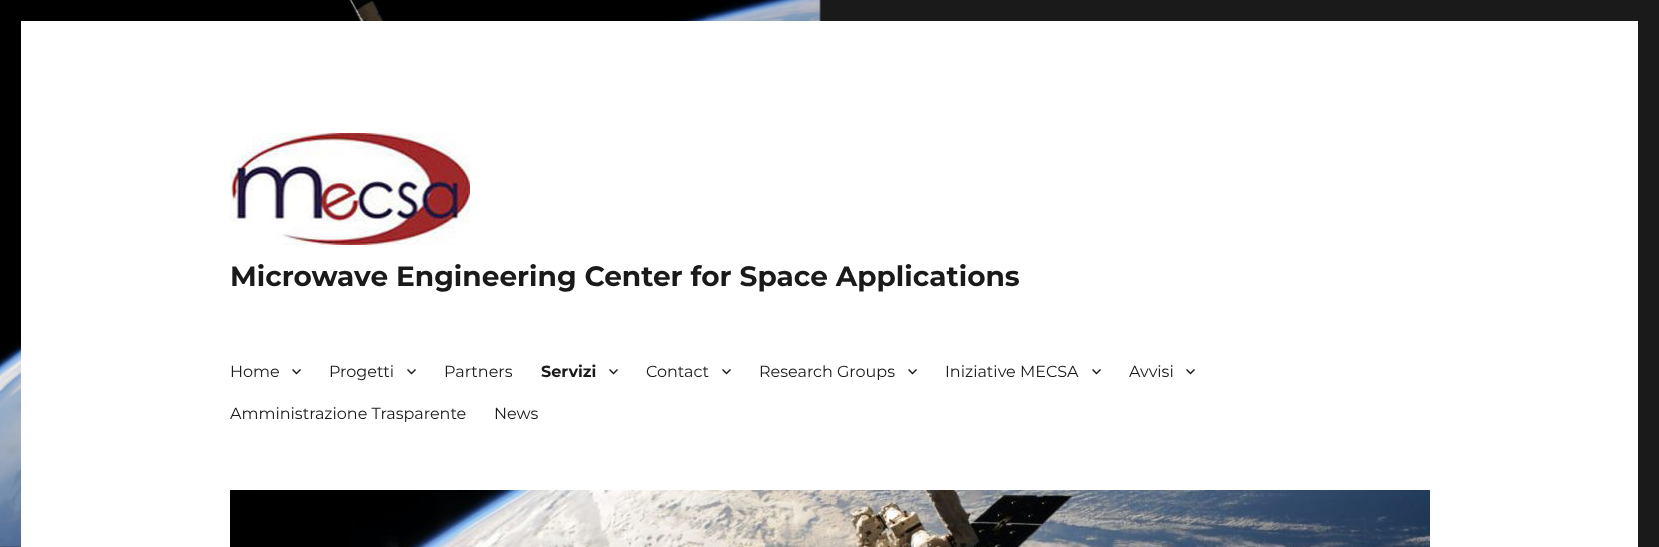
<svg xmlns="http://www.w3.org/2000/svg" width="1659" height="547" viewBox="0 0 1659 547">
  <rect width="100%" height="100%" fill="rgb(26,26,26)"/>
  <image x="0" y="0" width="821" height="547" href="pic1.png"/>
  <rect x="21" y="21" width="1617" height="526" fill="rgb(255,255,255)"/>
  <image x="230" y="133" width="240" height="112" href="pic2.png"/>
  <text x="230" y="286" font-family="Montserrat" font-size="28" font-weight="bold" fill="rgb(26,26,26)">Microwave Engineering Center for Space Applications</text>
  <text x="230" y="377" font-family="Montserrat" font-size="16" fill="rgb(26,26,26)">Home</text>
  <image x="292" y="369" width="9" height="6" href="pic3.png"/>
  <text x="329" y="377" font-family="Montserrat" font-size="16" fill="rgb(26,26,26)">Progetti</text>
  <image x="407" y="369" width="9" height="6" href="pic3.png"/>
  <text x="444" y="377" font-family="Montserrat" font-size="16" fill="rgb(26,26,26)">Partners</text>
  <text x="541" y="377" font-family="Montserrat" font-size="16" font-weight="bold" fill="rgb(26,26,26)">Servizi</text>
  <image x="609" y="369" width="9" height="6" href="pic3.png"/>
  <text x="646" y="377" font-family="Montserrat" font-size="16" fill="rgb(26,26,26)">Contact</text>
  <image x="722" y="369" width="9" height="6" href="pic3.png"/>
  <text x="759" y="377" font-family="Montserrat" font-size="16" fill="rgb(26,26,26)">Research Groups</text>
  <image x="908" y="369" width="9" height="6" href="pic3.png"/>
  <text x="945" y="377" font-family="Montserrat" font-size="16" fill="rgb(26,26,26)">Iniziative MECSA</text>
  <image x="1092" y="369" width="9" height="6" href="pic3.png"/>
  <text x="1129" y="377" font-family="Montserrat" font-size="16" fill="rgb(26,26,26)">Avvisi</text>
  <image x="1186" y="369" width="9" height="6" href="pic3.png"/>
  <g font-family="Montserrat" font-size="16" fill="rgb(26,26,26)">
    <text x="230" y="419">Amministrazione Trasparente</text>
    <text x="494" y="419">News</text>
  </g>
  <image x="230" y="490" width="1200" height="57" href="pic4.png"/>
</svg>
